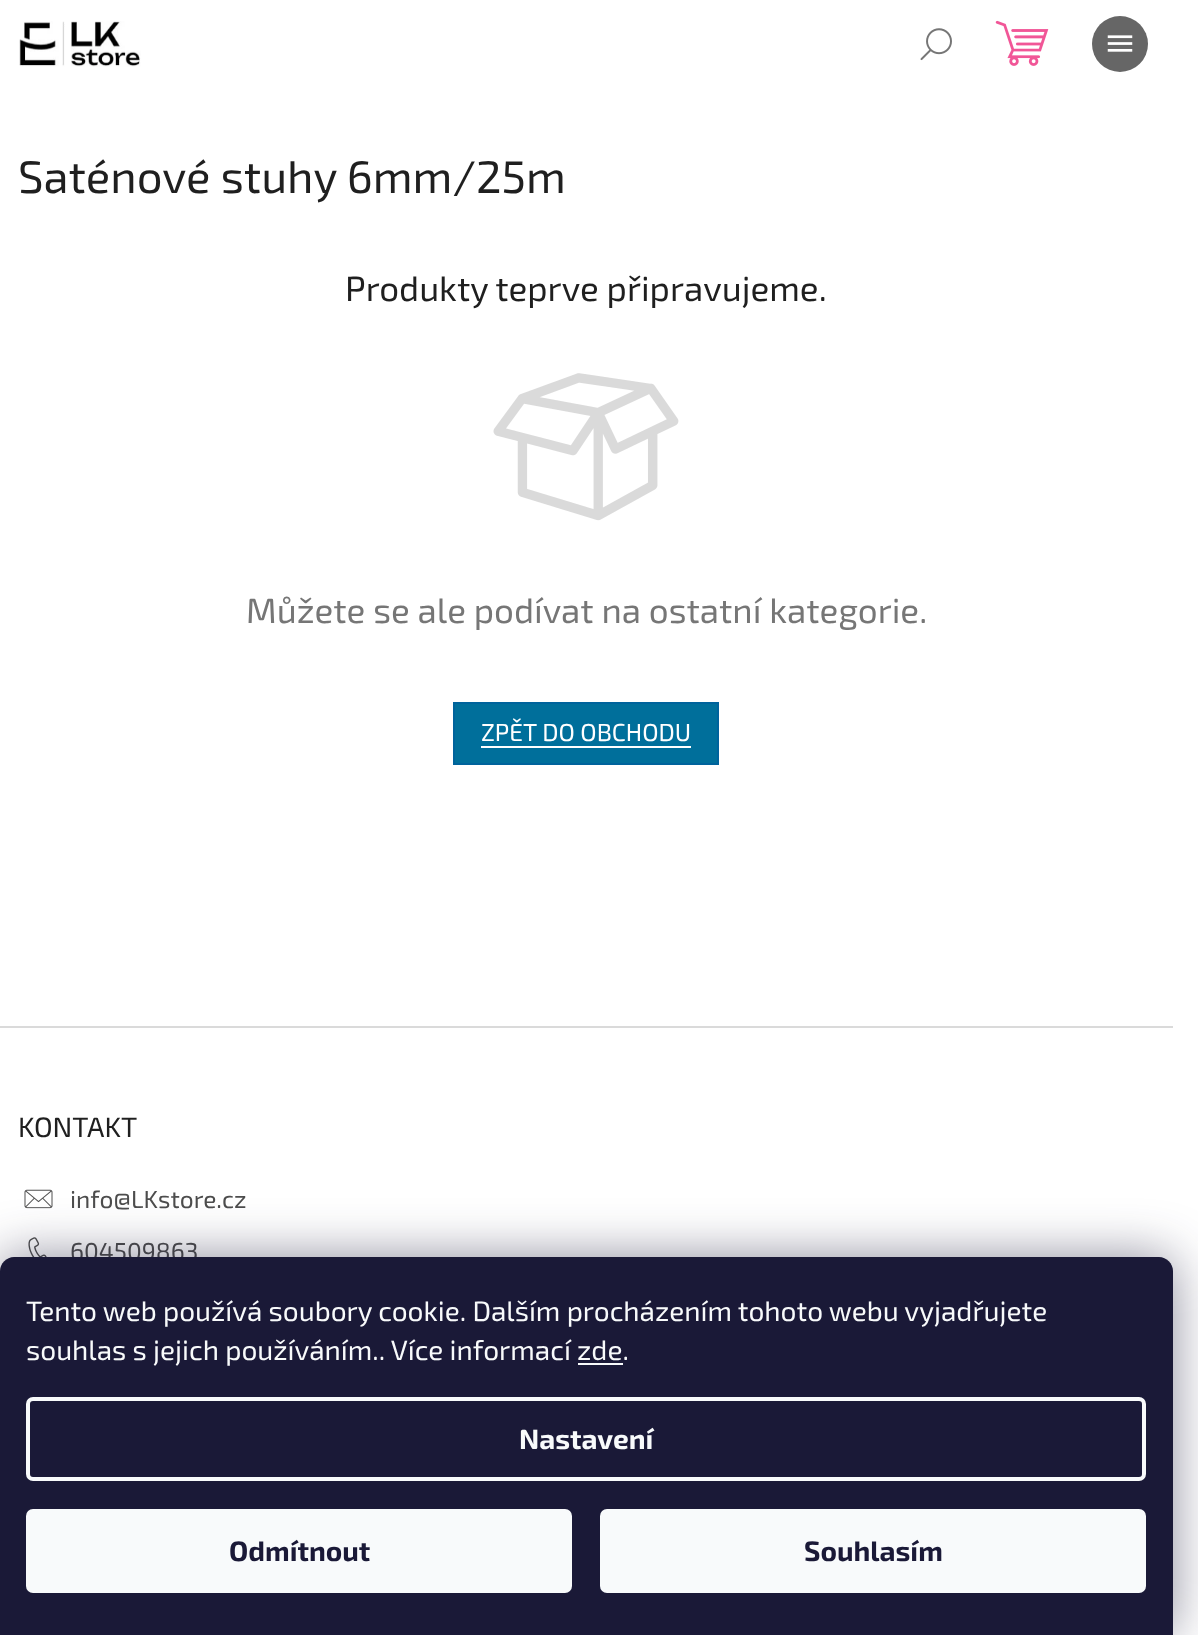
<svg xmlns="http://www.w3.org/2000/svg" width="1198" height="1635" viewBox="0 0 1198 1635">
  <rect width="100%" height="100%" fill="rgb(255,255,255)"/>
  <image x="920" y="28" width="32" height="33" href="pic1.png"/>
  <circle cx="1120" cy="44" r="28" fill="rgb(102,102,102)"/>
  <image x="1107" y="35" width="26" height="17" href="pic2.png"/>
  <image x="19" y="21" width="122" height="46" href="pic3.png"/>
  <image x="995" y="20" width="54" height="46" href="pic4.png"/>
  <text x="18" y="193" font-family="'Exo 2'" font-size="45.5" fill="rgb(31,31,31)">Saténové stuhy 6mm/25m</text>
  <text x="345" y="301" font-family="'Exo 2'" font-size="35" fill="rgb(31,31,31)">Produkty teprve připravujeme.</text>
  <image x="493" y="373" width="186" height="148" href="pic5.png"/>
  <text x="246" y="623" font-family="'Exo 2'" font-size="35" fill="rgb(118,118,118)">Můžete se ale podívat na ostatní kategorie.</text>
  <rect x="454" y="703" width="264" height="61" fill="rgb(0,111,155)" stroke="rgb(0,99,156)" stroke-width="2"/>
  <text x="481" y="741" font-family="'Exo 2'" font-size="24.5" fill="rgb(255,255,255)">ZPĚT DO OBCHODU</text>
  <rect x="481" y="746" width="210" height="2" fill="rgb(255,255,255)"/>
  <rect x="0" y="1026" width="1173" height="2" fill="rgb(218,218,218)"/>
  <text x="18" y="1137" font-family="'Exo 2'" font-size="28" fill="rgb(31,31,31)">KONTAKT</text>
  <image x="24" y="1189" width="29" height="20" href="pic6.png"/>
  <text x="70" y="1208" font-family="'Exo 2'" font-size="24.5" fill="rgb(77,77,77)">info@LKstore.cz</text>
  <image x="28" y="1237" width="19" height="20" href="pic7.png"/>
  <text x="70" y="1260" font-family="'Exo 2'" font-size="24.5" fill="rgb(77,77,77)">604509863</text>
  <rect x="0" y="1257" width="1173" height="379" rx="14" fill="rgba(27,25,57,0.5)" filter="blur(26px)"/>
  <path d="M14 1257H1159C1166.5 1257 1173 1263.5 1173 1271V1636H0V1271C0 1263.5 6.5 1257 14 1257Z" fill="rgb(26,25,55)"/>
  <g font-family="'Exo 2'" font-size="28" fill="rgb(248,250,251)">
    <text>
      <tspan x="26" y="1321">Tento web používá soubory cookie. Dalším procházením tohoto webu vyjadřujete</tspan>
      <tspan x="26" y="1360">souhlas s jejich používáním.. Více informací zde.</tspan>
    </text>
  </g>
  <rect x="578" y="1363" width="45" height="2" fill="rgb(248,250,251)"/>
  <rect x="28" y="1399" width="1116" height="80" rx="5" fill="none" stroke="rgb(248,250,251)" stroke-width="4"/>
  <text x="519" y="1449" font-family="'Exo 2'" font-size="28" font-weight="bold" fill="rgb(248,250,251)">Nastavení</text>
  <rect x="26" y="1509" width="546" height="84" rx="7" fill="rgb(248,250,251)"/>
  <text x="229" y="1561" font-family="'Exo 2'" font-size="28" font-weight="bold" fill="rgb(26,25,55)">Odmítnout</text>
  <rect x="600" y="1509" width="546" height="84" rx="7" fill="rgb(248,250,251)"/>
  <text x="804" y="1561" font-family="'Exo 2'" font-size="28" font-weight="bold" fill="rgb(26,25,55)">Souhlasím</text>
</svg>
